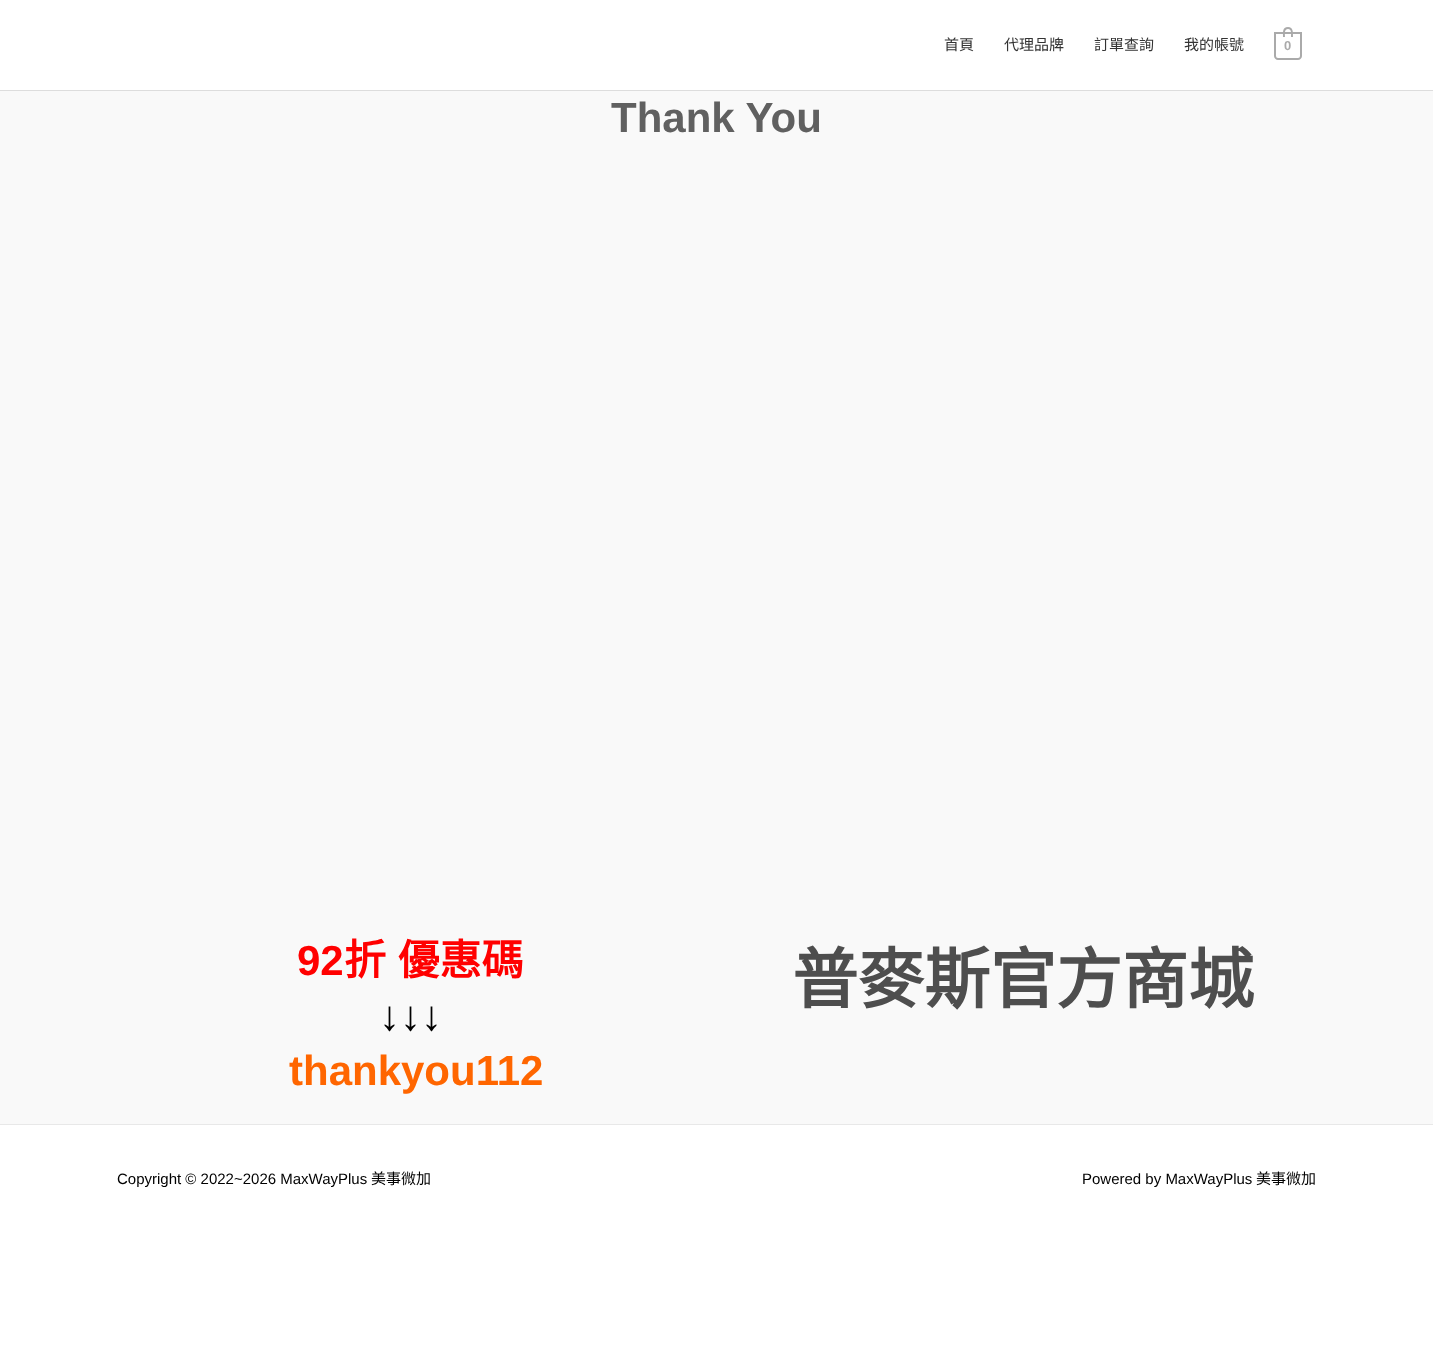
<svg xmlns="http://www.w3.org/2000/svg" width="1433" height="1355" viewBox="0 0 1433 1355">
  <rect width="100%" height="100%" fill="rgb(255,255,255)"/>
  <rect x="0" y="91" width="1433" height="1033" fill="rgb(249,249,249)"/>
  <rect x="0" y="90" width="1433" height="1" fill="rgb(221,221,221)"/>
  <g font-family="Noto Sans CJK TC" font-size="15" fill="rgb(51,51,51)">
    <text x="944" y="50">首頁</text>
    <text x="1004" y="50">代理品牌</text>
    <text x="1094" y="50">訂單查詢</text>
    <text x="1184" y="50">我的帳號</text>
  </g>
  <path d="M1275 33H1301V56C1301 57.5 1299.5 59 1298 59H1278C1276.5 59 1275 57.5 1275 56Z" fill="none" stroke="rgb(170,170,170)" stroke-width="2"/>
  <path d="M1288 27C1293.5 27 1293 33 1293 37H1283C1283 33 1282 27 1288 27ZM1288 29C1292 29 1291 34.5 1291 37H1285C1285 34.5 1284 29 1288 29Z" fill="rgb(170,170,170)" fill-rule="evenodd"/>
  <text x="1284" y="50" font-family="Liberation Sans" font-size="13" font-weight="bold" fill="rgb(170,170,170)">0</text>
  <text x="611" y="132" font-family="Liberation Sans" font-size="42" font-weight="bold" fill="rgb(96,96,96)">Thank You</text>
  <text x="297" y="975" font-family="Liberation Sans" font-size="42" font-weight="bold" fill="rgb(255,0,0)">92</text>
  <text x="344" y="975" word-spacing="2" font-family="Noto Sans CJK TC" font-size="42" font-weight="bold" fill="rgb(255,0,0)">折 優惠碼</text>
  <text x="379" y="1030" font-family="Liberation Sans" font-size="42" font-weight="bold" fill="rgb(0,0,0)">↓↓↓</text>
  <text x="289" y="1085" font-family="Liberation Sans" font-size="42" font-weight="bold" fill="rgb(255,102,0)">thankyou112</text>
  <text x="792" y="1003" font-family="Noto Sans CJK TC" font-size="66" font-weight="bold" fill="rgb(78,78,78)">普麥斯官方商城</text>
  <rect x="0" y="1124" width="1433" height="1" fill="rgb(232,232,232)"/>
  <text x="117" y="1184" font-family="Liberation Sans" font-size="15" fill="rgb(0,0,0)">Copyright © 2022~2026 MaxWayPlus</text>
  <text x="371" y="1184" font-family="Noto Sans CJK TC" font-size="15" fill="rgb(0,0,0)">美事微加</text>
  <text x="1082" y="1184" font-family="Liberation Sans" font-size="15" fill="rgb(0,0,0)">Powered by MaxWayPlus</text>
  <text x="1256" y="1184" font-family="Noto Sans CJK TC" font-size="15" fill="rgb(0,0,0)">美事微加</text>
</svg>
